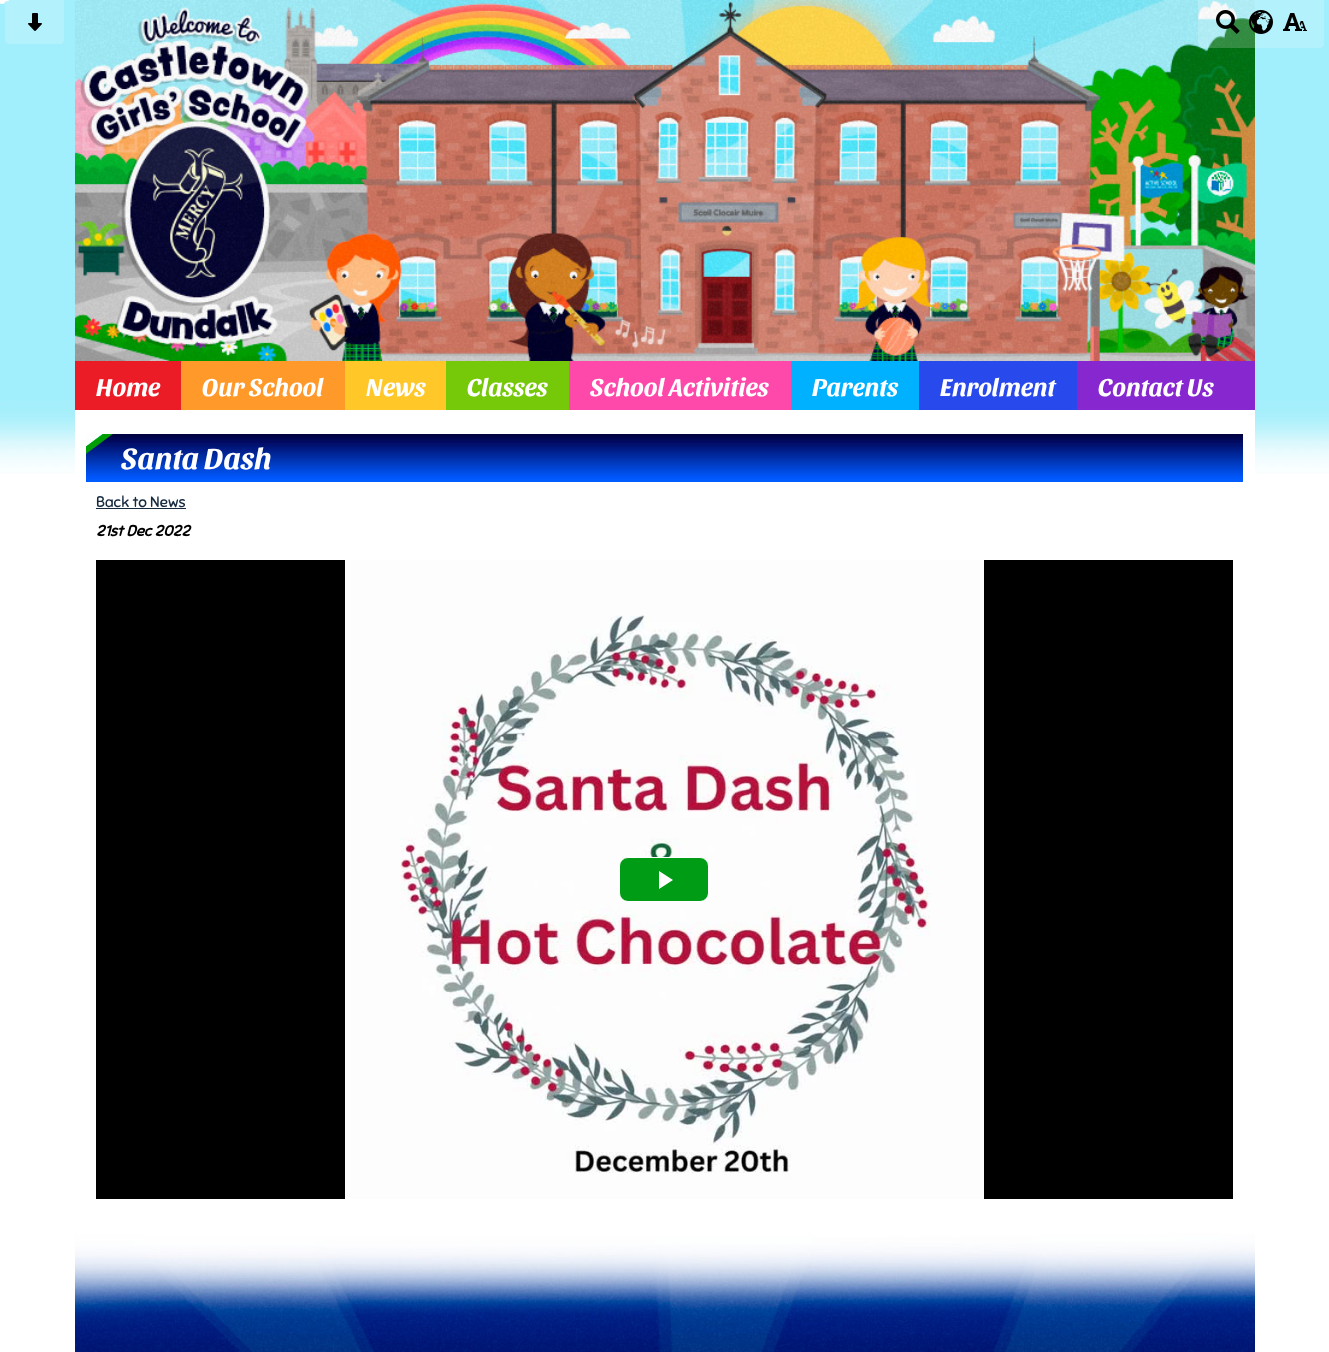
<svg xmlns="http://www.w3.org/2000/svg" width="1329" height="1352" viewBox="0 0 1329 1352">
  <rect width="100%" height="100%" fill="rgb(255,255,255)"/>
  <image x="0" y="0" width="1329" height="474" href="pic1.png"/>
  <image x="0" y="0" width="9" height="4" href="pic2.png"/>
  <path d="M5 0H64V39C64 42 62 44 59 44H10C7 44 5 42 5 39Z" fill="rgba(255,255,255,0.2)"/>
  <image x="28" y="13" width="14" height="18" href="pic3.png"/>
  <image x="75" y="0" width="1180" height="361" href="pic7.png"/>
  <path d="M1198 0H1324V43C1324 46 1322 48 1319 48H1203C1200 48 1198 46 1198 43Z" fill="rgba(255,255,255,0.2)"/>
  <image x="1216" y="10" width="24" height="24" href="pic4.png"/>
  <image x="1249" y="10" width="24" height="24" href="pic5.png"/>
  <image x="1283" y="13" width="24" height="18" href="pic6.png"/>
  <rect x="1077" y="361" width="178" height="49" fill="rgb(135,39,207)"/>
  <rect x="75" y="361" width="106" height="49" fill="rgb(235,28,38)"/>
  <text x="96" y="396" font-family="Sansita" font-size="25.5" font-weight="bold" font-style="italic" fill="rgb(255,255,255)">Home</text>
  <rect x="181" y="361" width="164" height="49" fill="rgb(255,153,42)"/>
  <text x="202" y="396" font-family="Sansita" font-size="25.5" font-weight="bold" font-style="italic" fill="rgb(255,255,255)">Our School</text>
  <rect x="345" y="361" width="101" height="49" fill="rgb(255,199,40)"/>
  <text x="366" y="396" font-family="Sansita" font-size="25.5" font-weight="bold" font-style="italic" fill="rgb(255,255,255)">News</text>
  <rect x="446" y="361" width="123" height="49" fill="rgb(118,201,9)"/>
  <text x="467" y="396" font-family="Sansita" font-size="25.5" font-weight="bold" font-style="italic" fill="rgb(255,255,255)">Classes</text>
  <rect x="569" y="361" width="222" height="49" fill="rgb(254,73,170)"/>
  <text x="590" y="396" font-family="Sansita" font-size="25.5" font-weight="bold" font-style="italic" fill="rgb(255,255,255)">School Activities</text>
  <rect x="791" y="361" width="128" height="49" fill="rgb(0,177,255)"/>
  <text x="812" y="396" font-family="Sansita" font-size="25.5" font-weight="bold" font-style="italic" fill="rgb(255,255,255)">Parents</text>
  <rect x="919" y="361" width="158" height="49" fill="rgb(40,73,236)"/>
  <g font-family="Sansita" font-size="25.5" font-weight="bold" font-style="italic" fill="rgb(255,255,255)">
    <text x="940" y="396">Enrolment</text>
    <text x="1098" y="396">Contact Us</text>
  </g>
  <rect x="75" y="410" width="1180" height="64" fill="rgb(255,255,255)"/>
  <rect x="86" y="479" width="1157" height="3" fill="rgb(0,92,255)"/>
  <image x="86" y="434" width="1157" height="45" href="pic8.png"/>
  <text x="121" y="469" font-family="Sansita" font-size="30.5" font-weight="bold" font-style="italic" fill="rgb(255,255,255)">Santa Dash</text>
  <text x="96" y="507" font-family="Sniglet" font-size="15.25" fill="rgb(21,41,65)">Back to News</text>
  <rect x="96" y="508" width="90" height="1" fill="rgb(21,41,65)"/>
  <text x="96" y="536" font-family="Sniglet" font-size="15.25" font-weight="bold" font-style="italic" fill="rgb(0,0,0)">21st Dec 2022</text>
  <rect x="96" y="560" width="1137" height="639" fill="rgb(0,0,0)"/>
  <image x="345" y="560" width="639" height="639" href="pic9.png"/>
  <rect x="619.5" y="857.5" width="89" height="44" rx="8.5" fill="rgb(0,156,21)" stroke="rgb(255,255,255)"/>
  <path d="M659 871V889L673 880Z" fill="rgb(255,255,255)"/>
  <image x="75" y="1233" width="1180" height="119" href="pic10.png"/>
</svg>
